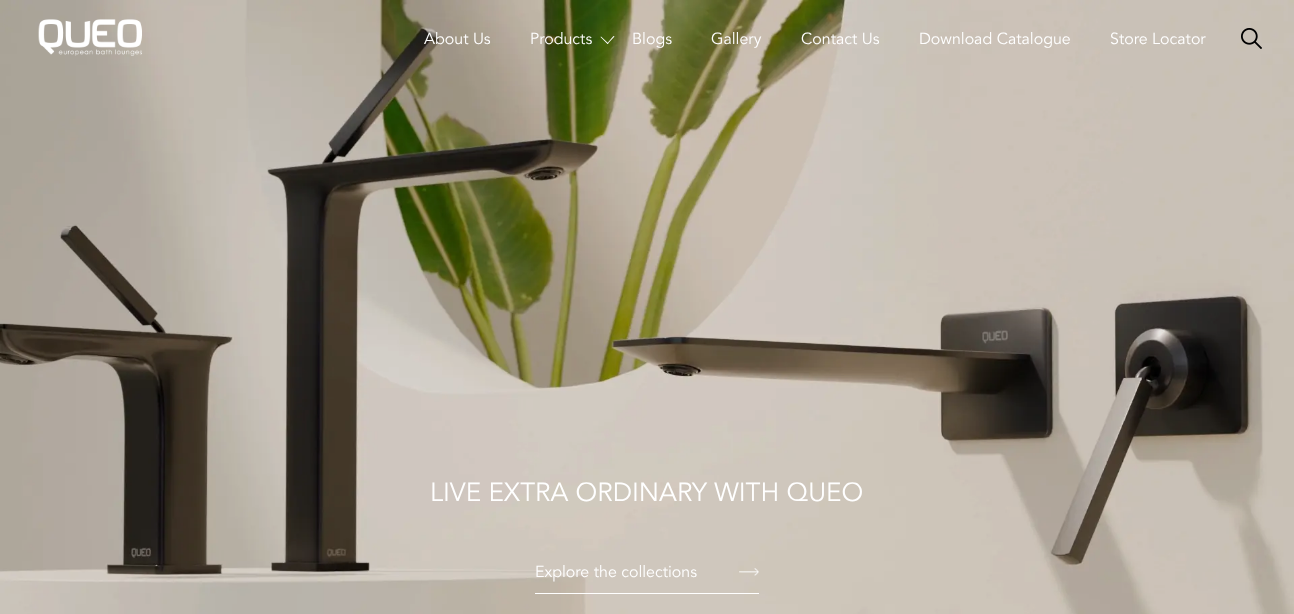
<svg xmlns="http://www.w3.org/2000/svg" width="1294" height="614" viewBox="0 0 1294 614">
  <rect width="100%" height="100%" fill="rgb(255,255,255)"/>
  <image x="0" y="0" width="1294" height="614" href="pic3.png"/>
  <image x="38" y="19" width="104" height="37" href="pic1.png"/>
  <g font-family="Avenir" font-size="16" fill="rgb(255,255,255)">
    <text x="424" y="44">About Us</text>
    <text x="530" y="44">Products</text>
  </g>
  <path d="M613.5 36L614.5 36.5L607.5 44L607 43.5Z" fill="rgb(255,255,255)"/>
  <path d="M601 36.5L608.5 43.5L607.5 44L600.5 37Z" fill="rgb(255,255,255)"/>
  <g font-family="Avenir" font-size="16" fill="rgb(255,255,255)">
    <text x="632" y="44">Blogs</text>
    <text x="711" y="44">Gallery</text>
    <text x="801" y="44">Contact Us</text>
    <text x="919" y="44">Download Catalogue</text>
    <text x="1110" y="44">Store Locator</text>
  </g>
  <image x="1241" y="28" width="21" height="21" href="pic2.png"/>
  <text x="430" y="501" font-family="Avenir" font-size="26" fill="rgb(255,255,255)">LIVE EXTRA ORDINARY WITH QUEO</text>
  <rect x="535" y="593" width="224" height="1" fill="rgb(255,255,255)"/>
  <text x="535" y="577" font-family="Avenir" font-size="16" fill="rgb(255,255,255)">Explore the collections</text>
  <image x="739" y="568" width="20" height="8" href="pic4.png"/>
</svg>
